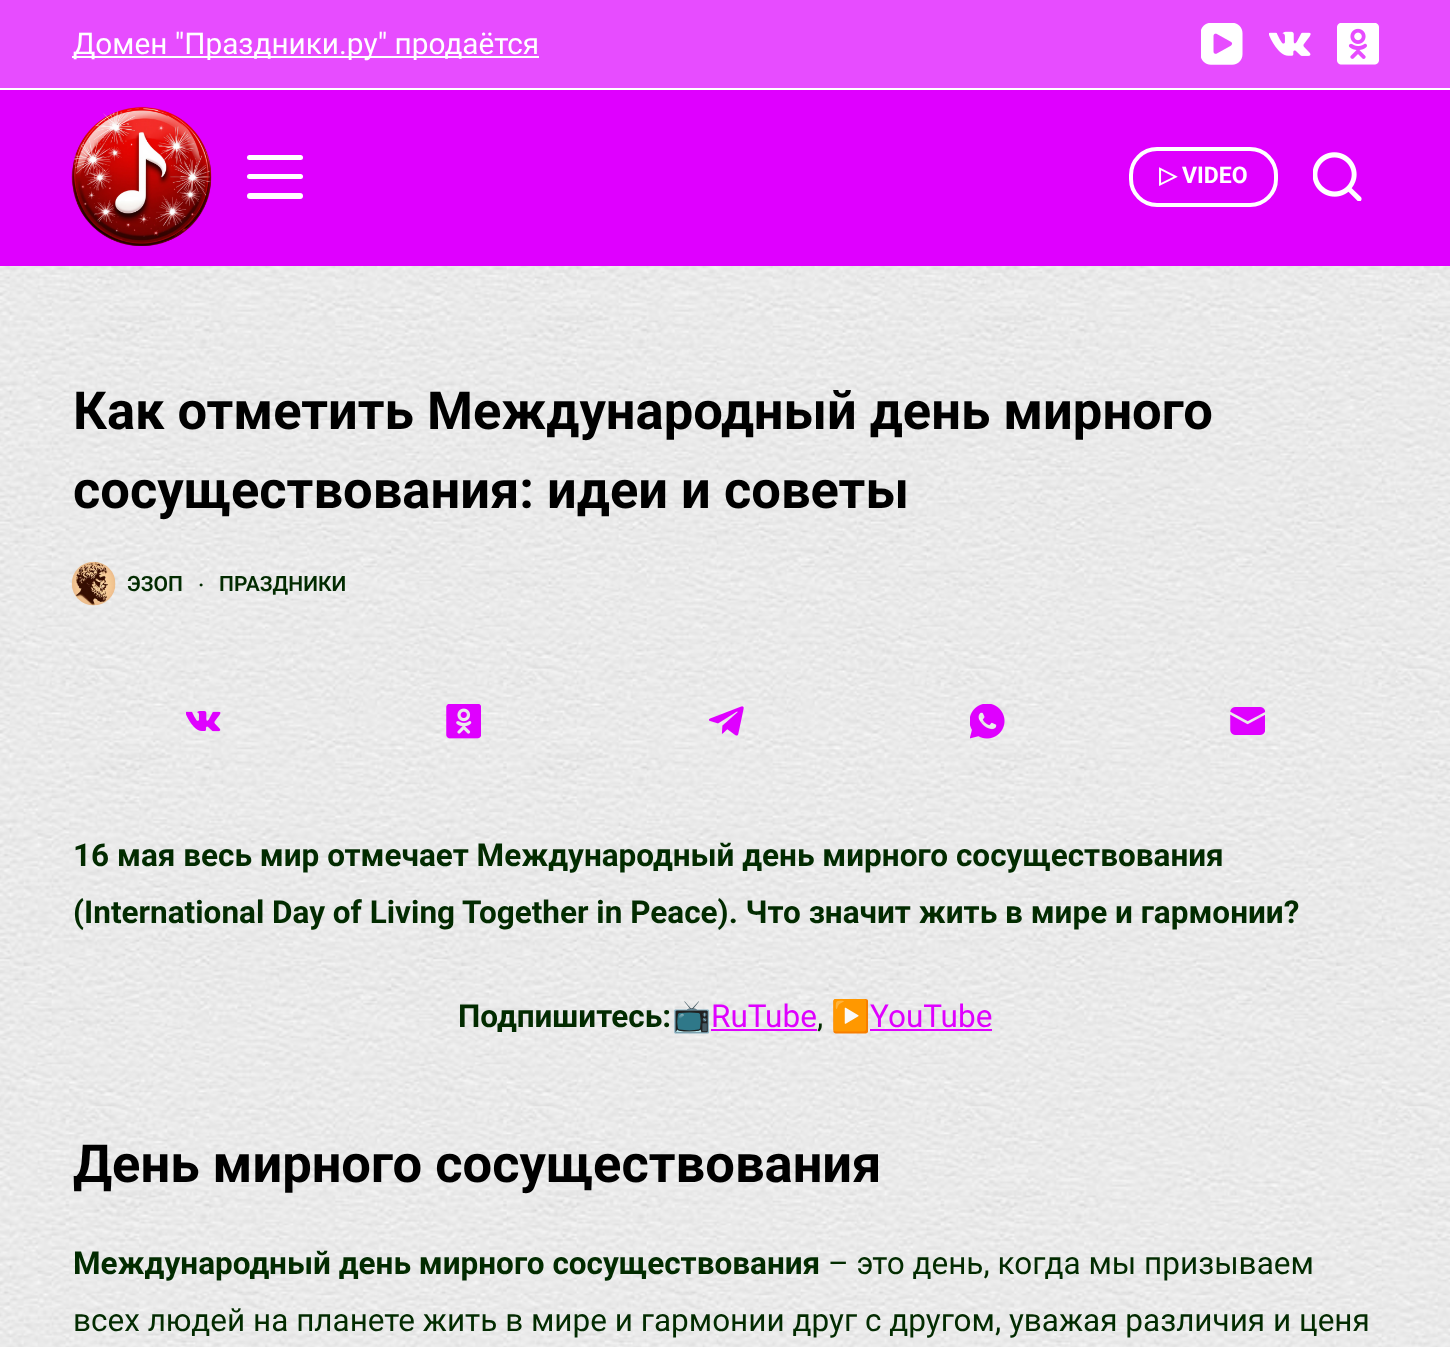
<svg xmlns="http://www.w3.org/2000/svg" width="1450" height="1347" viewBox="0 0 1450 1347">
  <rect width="100%" height="100%" fill="rgb(255,255,255)"/>
  <image x="0" y="266" width="1450" height="1081" href="pic1.png"/>
  <rect x="0" y="0" width="1450" height="88" fill="rgb(231,76,255)"/>
  <rect x="72" y="56" width="467" height="2" fill="rgb(255,255,255)"/>
  <text x="73" y="54" font-family="Roboto" font-size="29.75" fill="rgb(255,255,255)">Домен "Праздники.ру" продаётся</text>
  <image x="1201" y="23" width="42" height="42" href="pic2.png"/>
  <image x="1269" y="31" width="42" height="25" href="pic3.png"/>
  <image x="1337" y="23" width="42" height="42" href="pic4.png"/>
  <rect x="0" y="90" width="1450" height="176" fill="rgb(223,0,255)"/>
  <image x="71" y="106" width="141" height="140" href="pic5.png"/>
  <rect x="247" y="155" width="56" height="5" rx="2.5" fill="rgb(255,255,255)"/>
  <rect x="247" y="174" width="56" height="5" rx="2.5" fill="rgb(255,255,255)"/>
  <rect x="247" y="193" width="56" height="6" rx="3" fill="rgb(255,255,255)"/>
  <rect x="1131" y="149" width="145" height="56" rx="26" fill="none" stroke="rgb(255,255,255)" stroke-width="4"/>
  <text x="1159" y="183" font-family="DejaVu Sans" font-size="23" font-weight="bold" fill="rgb(255,255,255)">▷</text>
  <text x="1182" y="183" font-family="Roboto" font-size="23" font-weight="bold" fill="rgb(255,255,255)">VIDEO</text>
  <image x="1313" y="152" width="49" height="49" href="pic6.png"/>
  <g font-family="Roboto" font-size="52.5" font-weight="bold" fill="rgb(0,0,0)">
    <text>
      <tspan x="73" y="429">Как отметить Международный день мирного</tspan>
      <tspan x="73" y="508">сосуществования: идеи и советы</tspan>
    </text>
  </g>
  <image x="71" y="561" width="45" height="45" href="pic7.png"/>
  <text x="127" y="591" font-family="Roboto" font-size="21" font-weight="600" fill="rgb(2,43,0)">ЭЗОП</text>
  <text x="199" y="587" font-family="Liberation Sans" font-size="7" font-weight="bold" fill="rgb(2,43,0)">●</text>
  <text x="219" y="591" font-family="Roboto" font-size="21" font-weight="600" fill="rgb(2,43,0)">ПРАЗДНИКИ</text>
  <image x="186" y="711" width="35" height="21" href="pic8.png"/>
  <image x="446" y="704" width="35" height="35" href="pic9.png"/>
  <image x="709" y="706" width="35" height="30" href="pic10.png"/>
  <image x="970" y="704" width="35" height="35" href="pic11.png"/>
  <image x="1230" y="707" width="35" height="28" href="pic12.png"/>
  <g font-family="Roboto" font-size="31.5" font-weight="bold" fill="rgb(2,43,0)">
    <text>
      <tspan x="73" y="866">16 мая весь мир отмечает Международный день мирного сосуществования</tspan>
      <tspan x="73" y="923">(International Day of Living Together in Peace). Что значит жить в мире и гармонии?</tspan>
    </text>
    <text x="458" y="1027">Подпишитесь:</text>
  </g>
  <text x="672" y="1027" font-family="Noto Color Emoji" font-size="31.5" fill="rgb(2,43,0)">📺</text>
  <text x="711" y="1027" font-family="Roboto" font-size="31.5" fill="rgb(223,0,255)">RuTube</text>
  <rect x="711" y="1029" width="106" height="2" fill="rgb(223,0,255)"/>
  <text x="817" y="1027" font-family="Roboto" font-size="31.5" fill="rgb(2,43,0)">,</text>
  <text x="831" y="1027" font-family="Noto Color Emoji" font-size="31.5" fill="rgb(2,43,0)">▶️</text>
  <text x="870" y="1027" font-family="Roboto" font-size="31.5" fill="rgb(223,0,255)">YouTube</text>
  <rect x="870" y="1029" width="122" height="2" fill="rgb(223,0,255)"/>
  <text x="73" y="1182" font-family="Roboto" font-size="52.5" font-weight="bold" fill="rgb(0,0,0)">День мирного сосуществования</text>
  <text x="73" y="1274" font-family="Roboto" font-size="31.5" font-weight="bold" fill="rgb(2,43,0)">Международный день мирного сосуществования</text>
  <g font-family="Roboto" font-size="31.5" fill="rgb(2,43,0)">
    <text x="828" y="1274">– это день, когда мы призываем</text>
    <text x="73" y="1331">всех людей на планете жить в мире и гармонии друг с другом, уважая различия и ценя</text>
  </g>
</svg>
